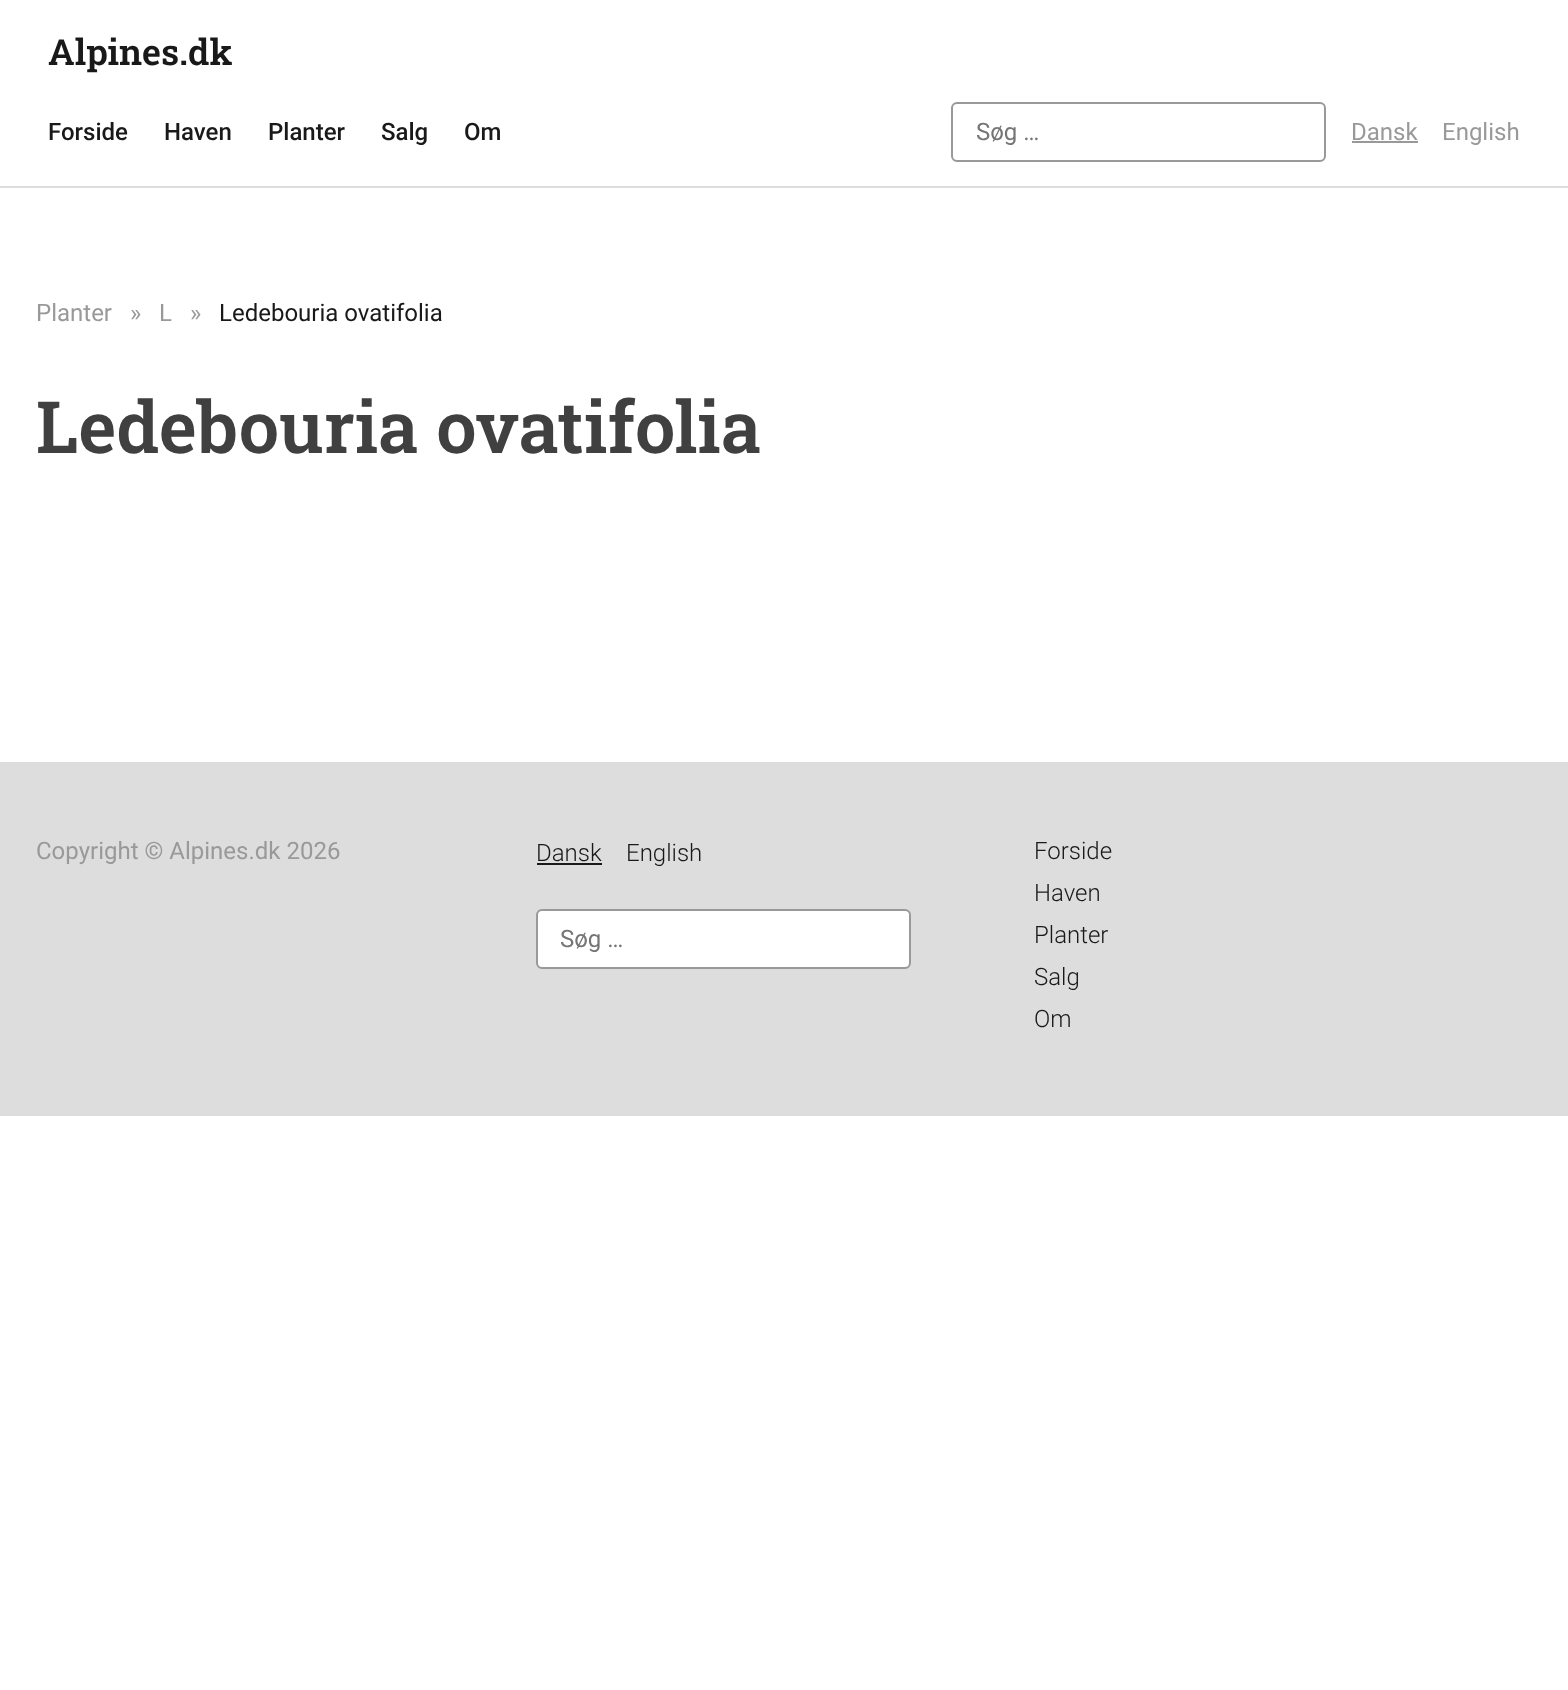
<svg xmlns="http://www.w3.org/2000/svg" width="1568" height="1690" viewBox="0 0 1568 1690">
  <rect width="100%" height="100%" fill="rgb(255,255,255)"/>
  <rect x="0" y="186" width="1568" height="2" fill="rgb(221,221,221)"/>
  <text x="48" y="65" font-family="Roboto Slab" font-size="36" font-weight="600" fill="rgb(25,25,25)">Alpines.dk</text>
  <g font-family="Roboto" font-size="24" font-weight="500" fill="rgb(25,25,25)">
    <text x="48" y="140">Forside</text>
    <text x="164" y="140">Haven</text>
    <text x="268" y="140">Planter</text>
    <text x="381" y="140">Salg</text>
    <text x="464" y="140">Om</text>
  </g>
  <rect x="952" y="103" width="373" height="58" rx="5" fill="none" stroke="rgb(153,153,153)" stroke-width="2"/>
  <text x="976" y="140" font-family="Roboto" font-size="24" fill="rgb(117,117,117)">Søg …</text>
  <text x="1351" y="140" font-family="Roboto" font-size="24" fill="rgb(153,153,153)">Dansk</text>
  <rect x="1352" y="141" width="66" height="2" fill="rgb(153,153,153)"/>
  <g font-family="Roboto" font-size="24" fill="rgb(153,153,153)">
    <text x="1442" y="140">English</text>
    <text x="36" y="321">Planter</text>
    <text x="130" y="321">»</text>
    <text x="159" y="321">L</text>
    <text x="190" y="321">»</text>
  </g>
  <text x="219" y="321" font-family="Roboto" font-size="24" fill="rgb(25,25,25)">Ledebouria ovatifolia</text>
  <text x="36" y="453" font-family="Roboto Slab" font-size="72" font-weight="600" fill="rgb(64,64,64)">Ledebouria ovatifolia</text>
  <rect x="0" y="762" width="1568" height="354" fill="rgb(221,221,221)"/>
  <text x="36" y="859" font-family="Roboto" font-size="24" fill="rgb(153,153,153)">Copyright © Alpines.dk 2026</text>
  <text x="536" y="861" font-family="Roboto" font-size="24" font-weight="300" fill="rgb(25,25,25)">Dansk</text>
  <rect x="537" y="863" width="65" height="2" fill="rgb(25,25,25)"/>
  <text x="626" y="861" font-family="Roboto" font-size="24" font-weight="300" fill="rgb(25,25,25)">English</text>
  <rect x="537" y="910" width="373" height="58" rx="5" fill="rgb(255,255,255)" stroke="rgb(153,153,153)" stroke-width="2"/>
  <text x="560" y="947" font-family="Roboto" font-size="24" fill="rgb(117,117,117)">Søg …</text>
  <g font-family="Roboto" font-size="24" font-weight="300" fill="rgb(25,25,25)">
    <text>
      <tspan x="1034" y="859">Forside</tspan>
      <tspan x="1034" y="901">Haven</tspan>
      <tspan x="1034" y="943">Planter</tspan>
      <tspan x="1034" y="985">Salg</tspan>
      <tspan x="1034" y="1027">Om</tspan>
    </text>
  </g>
</svg>
